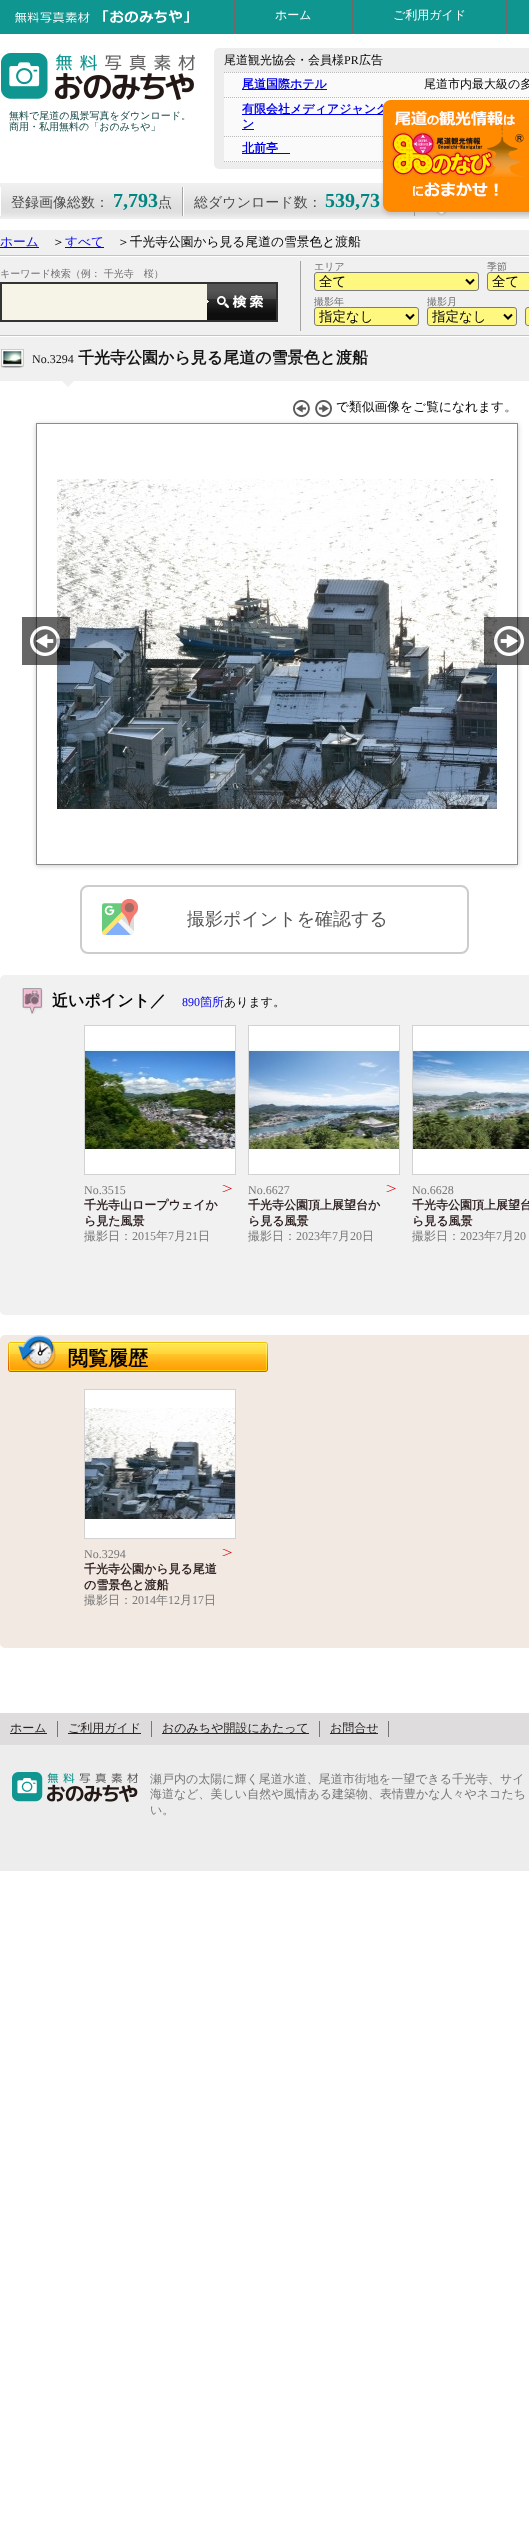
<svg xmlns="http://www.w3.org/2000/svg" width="529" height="2533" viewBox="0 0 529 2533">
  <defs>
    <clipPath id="clip1"><path d="M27 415H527V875H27ZM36 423H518V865H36Z" clip-rule="evenodd"/></clipPath>
  </defs>
  <rect width="100%" height="100%" fill="rgb(255,255,255)"/>
  <rect x="0" y="0" width="529" height="34" fill="rgb(16,150,145)"/>
  <image x="15" y="10" width="174" height="13" href="pic1.png"/>
  <path d="M234.5 0V34" fill="none" stroke="rgb(110,99,99)" stroke-dasharray="1 1"/>
  <text x="275" y="19" font-family="WenQuanYi Zen Hei" font-size="12" font-weight="500" fill="rgb(255,255,255)">ホーム</text>
  <path d="M352.5 0V34" fill="none" stroke="rgb(110,99,99)" stroke-dasharray="1 1"/>
  <text x="393" y="19" font-family="WenQuanYi Zen Hei" font-size="12" font-weight="500" fill="rgb(255,255,255)">ご利用ガイド</text>
  <path d="M506.5 0V34" fill="none" stroke="rgb(110,99,99)" stroke-dasharray="1 1"/>
  <image x="1" y="53" width="194" height="47" href="pic2.png"/>
  <g font-family="WenQuanYi Zen Hei" font-size="10" font-weight="500" fill="rgb(17,69,67)">
    <text>
      <tspan x="9" y="119">無料で尾道の風景写真をダウンロード。</tspan>
      <tspan x="9" y="130">商用・私用無料の「おのみちや」</tspan>
    </text>
  </g>
  <rect x="214" y="48" width="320" height="121" rx="5" fill="rgb(238,237,237)"/>
  <text x="224" y="64" font-family="WenQuanYi Zen Hei" font-size="12" font-weight="500" fill="rgb(5,5,5)">尾道観光協会・会員様</text>
  <text x="344" y="64" font-family="Liberation Serif" font-size="12" fill="rgb(5,5,5)">PR</text>
  <text x="359" y="64" font-family="WenQuanYi Zen Hei" font-size="12" font-weight="500" fill="rgb(5,5,5)">広告</text>
  <rect x="224" y="72" width="305" height="90" fill="rgb(250,250,250)"/>
  <path d="M224 72.5H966" fill="none" stroke="rgb(186,186,186)" stroke-dasharray="1 1"/>
  <path d="M224 97.5H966" fill="none" stroke="rgb(186,186,186)" stroke-dasharray="1 1"/>
  <rect x="242" y="89" width="85" height="1" fill="rgb(0,0,238)"/>
  <text x="242" y="88" font-family="WenQuanYi Zen Hei" font-size="12" font-weight="bold" fill="rgb(0,0,238)">尾道国際ホテル</text>
  <text x="424" y="88" font-family="WenQuanYi Zen Hei" font-size="12" font-weight="500" fill="rgb(5,5,5)">尾道市内最大級の多</text>
  <path d="M224 136.5H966" fill="none" stroke="rgb(186,186,186)" stroke-dasharray="1 1"/>
  <rect x="242" y="114" width="141" height="1" fill="rgb(0,0,238)"/>
  <g font-family="WenQuanYi Zen Hei" font-size="12" font-weight="bold" fill="rgb(0,0,238)">
    <text>
      <tspan x="242" y="113">有限会社メディアジャンク</tspan>
      <tspan x="242" y="128">ン</tspan>
    </text>
  </g>
  <rect x="242" y="129" width="12" height="1" fill="rgb(0,0,238)"/>
  <path d="M224 161.5H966" fill="none" stroke="rgb(186,186,186)" stroke-dasharray="1 1"/>
  <rect x="242" y="153" width="48" height="1" fill="rgb(0,0,238)"/>
  <text x="242" y="152" font-family="WenQuanYi Zen Hei" font-size="12" font-weight="bold" fill="rgb(0,0,238)">北前亭</text>
  <image x="0" y="183" width="529" height="36" href="pic3.png"/>
  <rect x="182" y="187" width="1" height="29" fill="rgb(165,165,165)"/>
  <rect x="0" y="187" width="1" height="29" fill="rgb(255,255,255)"/>
  <text x="11" y="207" font-family="WenQuanYi Zen Hei" font-size="14" font-weight="500" fill="rgb(74,74,74)">登録画像総数：</text>
  <text x="113" y="207" font-family="Liberation Serif" font-size="20" font-weight="bold" fill="rgb(0,134,129)">7,793</text>
  <text x="158" y="207" font-family="WenQuanYi Zen Hei" font-size="14" font-weight="500" fill="rgb(74,74,74)">点</text>
  <rect x="414" y="212" width="1" height="4" fill="rgb(165,165,165)"/>
  <rect x="183" y="187" width="1" height="29" fill="rgb(255,255,255)"/>
  <text x="194" y="207" font-family="WenQuanYi Zen Hei" font-size="14" font-weight="500" fill="rgb(74,74,74)">総ダウンロード数：</text>
  <text x="325" y="207" font-family="Liberation Serif" font-size="20" font-weight="bold" fill="rgb(0,134,129)">539,73</text>
  <image x="436" y="212" width="11" height="4" href="pic4.png"/>
  <image x="381" y="100" width="148" height="118" href="pic5.png"/>
  <rect x="0" y="230" width="529" height="25" fill="rgb(240,240,240)"/>
  <rect x="0" y="255" width="529" height="1" fill="rgb(197,197,197)"/>
  <rect x="0" y="247" width="39" height="1" fill="rgb(0,0,238)"/>
  <text x="0" y="246" font-family="WenQuanYi Zen Hei" font-size="12.75" font-weight="500" fill="rgb(0,0,238)">ホーム</text>
  <text x="52" y="246" font-family="WenQuanYi Zen Hei" font-size="12.75" font-weight="500" fill="rgb(5,5,5)">＞</text>
  <rect x="65" y="247" width="39" height="1" fill="rgb(0,0,238)"/>
  <text x="65" y="246" font-family="WenQuanYi Zen Hei" font-size="12.75" font-weight="500" fill="rgb(0,0,238)">すべて</text>
  <text x="117" y="246" font-family="WenQuanYi Zen Hei" font-size="12.75" font-weight="500" fill="rgb(5,5,5)">＞千光寺公園から見る尾道の雪景色と渡船</text>
  <rect x="0" y="257" width="529" height="78" fill="rgb(240,240,240)"/>
  <rect x="0" y="335" width="529" height="1" fill="rgb(197,197,197)"/>
  <text x="0" y="277" font-family="WenQuanYi Zen Hei" font-size="10" font-weight="500" fill="rgb(109,109,109)">キーワード検索（例： 千光寺　桜）</text>
  <rect x="2" y="284" width="205" height="36" fill="rgb(246,243,231)"/>
  <rect x="0" y="282" width="278" height="2" fill="rgb(51,51,51)"/>
  <rect x="0" y="320" width="207" height="2" fill="rgb(51,51,51)"/>
  <rect x="0" y="282" width="2" height="40" fill="rgb(51,51,51)"/>
  <image x="207" y="284" width="69" height="36" href="pic6.png"/>
  <rect x="276" y="282" width="2" height="40" fill="rgb(51,51,51)"/>
  <rect x="207" y="320" width="71" height="2" fill="rgb(51,51,51)"/>
  <rect x="300" y="261" width="1" height="70" fill="rgb(165,165,165)"/>
  <text x="314" y="270" font-family="WenQuanYi Zen Hei" font-size="10" font-weight="500" fill="rgb(109,109,109)">エリア</text>
  <rect x="314.5" y="272.5" width="164" height="18" rx="2.5" fill="rgb(255,248,128)" stroke="rgb(124,124,124)"/>
  <path d="M466 279.5L470 283.5L474 279.5" fill="none" stroke="rgb(0,0,0)" stroke-width="2"/>
  <text x="319" y="286" font-family="WenQuanYi Zen Hei" font-size="13.5" font-weight="500" fill="rgb(5,5,5)">全て</text>
  <text x="487" y="270" font-family="WenQuanYi Zen Hei" font-size="10" font-weight="500" fill="rgb(109,109,109)">季節</text>
  <rect x="487.5" y="272.5" width="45" height="18" rx="2.5" fill="rgb(255,248,128)" stroke="rgb(124,124,124)"/>
  <text x="492" y="286" font-family="WenQuanYi Zen Hei" font-size="13.5" font-weight="500" fill="rgb(5,5,5)">全て</text>
  <text x="314" y="305" font-family="WenQuanYi Zen Hei" font-size="10" font-weight="500" fill="rgb(109,109,109)">撮影年</text>
  <rect x="314.5" y="307.5" width="104" height="18" rx="2.5" fill="rgb(255,248,128)" stroke="rgb(124,124,124)"/>
  <path d="M406 314.5L410 318.5L414 314.5" fill="none" stroke="rgb(0,0,0)" stroke-width="2"/>
  <text x="319" y="321" font-family="WenQuanYi Zen Hei" font-size="13.5" font-weight="500" fill="rgb(5,5,5)">指定なし</text>
  <text x="427" y="305" font-family="WenQuanYi Zen Hei" font-size="10" font-weight="500" fill="rgb(109,109,109)">撮影月</text>
  <rect x="427.5" y="307.5" width="89" height="18" rx="2.5" fill="rgb(255,248,128)" stroke="rgb(124,124,124)"/>
  <path d="M504 314.5L508 318.5L512 314.5" fill="none" stroke="rgb(0,0,0)" stroke-width="2"/>
  <text x="432" y="321" font-family="WenQuanYi Zen Hei" font-size="13.5" font-weight="500" fill="rgb(5,5,5)">指定なし</text>
  <rect x="525.5" y="307.5" width="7" height="18" rx="2.5" fill="rgb(255,248,128)" stroke="rgb(124,124,124)"/>
  <rect x="0" y="337" width="529" height="44" fill="rgb(240,240,240)"/>
  <image x="1" y="349" width="23" height="19" href="pic7.png"/>
  <text x="32" y="363" font-family="Liberation Serif" font-size="12" fill="rgb(20,20,20)">No.3294</text>
  <text x="78" y="363" font-family="WenQuanYi Zen Hei" font-size="16" font-weight="bold" fill="rgb(20,20,20)">千光寺公園から見る尾道の雪景色と渡船</text>
  <image x="62" y="381" width="12" height="6" href="pic8.png"/>
  <image x="293" y="400" width="17" height="17" href="pic9.png"/>
  <image x="315" y="400" width="17" height="17" href="pic10.png"/>
  <text x="336" y="411" font-family="WenQuanYi Zen Hei" font-size="12.75" font-weight="500" fill="rgb(5,5,5)">で類似画像をご覧になれます。</text>
  <g clip-path="url(#clip1)">
    <rect x="36" y="424" width="482" height="442" fill="rgba(0,0,0,0.2)" filter="blur(2.5px)"/>
  </g>
  <rect x="36.5" y="423.5" width="481" height="441" fill="none" stroke="rgb(139,139,139)"/>
  <image x="57" y="479" width="440" height="331" href="pic12.png"/>
  <image x="22" y="617" width="48" height="48" href="pic11.png"/>
  <image x="484" y="617" width="45" height="48" href="pic13.png"/>
  <rect x="81" y="886" width="387" height="67" rx="7" fill="none" stroke="rgb(204,204,204)" stroke-width="2"/>
  <image x="102" y="899" width="36" height="36" href="pic14.png"/>
  <text x="187" y="925" font-family="WenQuanYi Zen Hei" font-size="18" font-weight="500" fill="rgb(85,85,85)">撮影ポイントを確認する</text>
  <rect x="0" y="975" width="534" height="340" rx="5" fill="rgb(241,241,241)"/>
  <image x="22" y="988" width="21" height="26" href="pic15.png"/>
  <text x="52" y="1006" font-family="WenQuanYi Zen Hei" font-size="16" font-weight="bold" fill="rgb(5,5,5)">近いポイント／</text>
  <text x="182" y="1006" font-family="Liberation Serif" font-size="12" fill="rgb(0,0,232)">890</text>
  <text x="200" y="1006" font-family="WenQuanYi Zen Hei" font-size="12" font-weight="500" fill="rgb(0,0,232)">箇所</text>
  <text x="224" y="1006" font-family="WenQuanYi Zen Hei" font-size="12" font-weight="500" fill="rgb(5,5,5)">あります。</text>
  <rect x="84.5" y="1025.5" width="151" height="149" fill="none" stroke="rgb(210,210,210)"/>
  <image x="85" y="1026" width="150" height="148" href="pic16.png"/>
  <image x="222" y="1185" width="10" height="7" href="pic17.png"/>
  <text x="84" y="1194" font-family="Liberation Serif" font-size="12" fill="rgb(119,119,119)">No.3515</text>
  <g font-family="WenQuanYi Zen Hei" font-size="12" font-weight="bold" fill="rgb(48,34,34)">
    <text>
      <tspan x="84" y="1209">千光寺山ロープウェイか</tspan>
      <tspan x="84" y="1225">ら見た風景</tspan>
    </text>
  </g>
  <text x="84" y="1240" font-family="WenQuanYi Zen Hei" font-size="12" font-weight="500" fill="rgb(119,119,119)">撮影日：</text>
  <text x="132" y="1240" font-family="Liberation Serif" font-size="12" fill="rgb(119,119,119)">2015</text>
  <text x="156" y="1240" font-family="WenQuanYi Zen Hei" font-size="12" font-weight="500" fill="rgb(119,119,119)">年</text>
  <text x="168" y="1240" font-family="Liberation Serif" font-size="12" fill="rgb(119,119,119)">7</text>
  <text x="174" y="1240" font-family="WenQuanYi Zen Hei" font-size="12" font-weight="500" fill="rgb(119,119,119)">月</text>
  <text x="186" y="1240" font-family="Liberation Serif" font-size="12" fill="rgb(119,119,119)">21</text>
  <text x="198" y="1240" font-family="WenQuanYi Zen Hei" font-size="12" font-weight="500" fill="rgb(119,119,119)">日</text>
  <rect x="248.5" y="1025.5" width="151" height="149" fill="none" stroke="rgb(210,210,210)"/>
  <image x="249" y="1026" width="150" height="148" href="pic18.png"/>
  <image x="386" y="1185" width="10" height="7" href="pic17.png"/>
  <text x="248" y="1194" font-family="Liberation Serif" font-size="12" fill="rgb(119,119,119)">No.6627</text>
  <g font-family="WenQuanYi Zen Hei" font-size="12" font-weight="bold" fill="rgb(48,34,34)">
    <text>
      <tspan x="248" y="1209">千光寺公園頂上展望台か</tspan>
      <tspan x="248" y="1225">ら見る風景</tspan>
    </text>
  </g>
  <text x="248" y="1240" font-family="WenQuanYi Zen Hei" font-size="12" font-weight="500" fill="rgb(119,119,119)">撮影日：</text>
  <text x="296" y="1240" font-family="Liberation Serif" font-size="12" fill="rgb(119,119,119)">2023</text>
  <text x="320" y="1240" font-family="WenQuanYi Zen Hei" font-size="12" font-weight="500" fill="rgb(119,119,119)">年</text>
  <text x="332" y="1240" font-family="Liberation Serif" font-size="12" fill="rgb(119,119,119)">7</text>
  <text x="338" y="1240" font-family="WenQuanYi Zen Hei" font-size="12" font-weight="500" fill="rgb(119,119,119)">月</text>
  <text x="350" y="1240" font-family="Liberation Serif" font-size="12" fill="rgb(119,119,119)">20</text>
  <text x="362" y="1240" font-family="WenQuanYi Zen Hei" font-size="12" font-weight="500" fill="rgb(119,119,119)">日</text>
  <rect x="412.5" y="1025.5" width="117" height="149" fill="none" stroke="rgb(210,210,210)"/>
  <image x="413" y="1026" width="116" height="148" href="pic19.png"/>
  <text x="412" y="1194" font-family="Liberation Serif" font-size="12" fill="rgb(119,119,119)">No.6628</text>
  <g font-family="WenQuanYi Zen Hei" font-size="12" font-weight="bold" fill="rgb(48,34,34)">
    <text>
      <tspan x="412" y="1209">千光寺公園頂上展望台</tspan>
      <tspan x="412" y="1225">ら見る風景</tspan>
    </text>
  </g>
  <text x="412" y="1240" font-family="WenQuanYi Zen Hei" font-size="12" font-weight="500" fill="rgb(119,119,119)">撮影日：</text>
  <text x="460" y="1240" font-family="Liberation Serif" font-size="12" fill="rgb(119,119,119)">2023</text>
  <text x="484" y="1240" font-family="WenQuanYi Zen Hei" font-size="12" font-weight="500" fill="rgb(119,119,119)">年</text>
  <text x="496" y="1240" font-family="Liberation Serif" font-size="12" fill="rgb(119,119,119)">7</text>
  <text x="502" y="1240" font-family="WenQuanYi Zen Hei" font-size="12" font-weight="500" fill="rgb(119,119,119)">月</text>
  <text x="514" y="1240" font-family="Liberation Serif" font-size="12" fill="rgb(119,119,119)">20</text>
  <rect x="0" y="1335" width="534" height="313" rx="5" fill="rgb(241,233,226)"/>
  <image x="8" y="1335" width="260" height="37" href="pic20.png"/>
  <text x="68" y="1365" font-family="WenQuanYi Zen Hei" font-size="20" font-weight="bold" fill="rgb(5,5,5)">閲覧履歴</text>
  <rect x="84.5" y="1389.5" width="151" height="149" fill="none" stroke="rgb(210,210,210)"/>
  <image x="85" y="1390" width="150" height="148" href="pic21.png"/>
  <image x="222" y="1549" width="10" height="7" href="pic22.png"/>
  <text x="84" y="1558" font-family="Liberation Serif" font-size="12" fill="rgb(119,119,119)">No.3294</text>
  <g font-family="WenQuanYi Zen Hei" font-size="12" font-weight="bold" fill="rgb(48,34,34)">
    <text>
      <tspan x="84" y="1573">千光寺公園から見る尾道</tspan>
      <tspan x="84" y="1589">の雪景色と渡船</tspan>
    </text>
  </g>
  <text x="84" y="1604" font-family="WenQuanYi Zen Hei" font-size="12" font-weight="500" fill="rgb(119,119,119)">撮影日：</text>
  <text x="132" y="1604" font-family="Liberation Serif" font-size="12" fill="rgb(119,119,119)">2014</text>
  <text x="156" y="1604" font-family="WenQuanYi Zen Hei" font-size="12" font-weight="500" fill="rgb(119,119,119)">年</text>
  <text x="168" y="1604" font-family="Liberation Serif" font-size="12" fill="rgb(119,119,119)">12</text>
  <text x="180" y="1604" font-family="WenQuanYi Zen Hei" font-size="12" font-weight="500" fill="rgb(119,119,119)">月</text>
  <text x="192" y="1604" font-family="Liberation Serif" font-size="12" fill="rgb(119,119,119)">17</text>
  <text x="204" y="1604" font-family="WenQuanYi Zen Hei" font-size="12" font-weight="500" fill="rgb(119,119,119)">日</text>
  <rect x="0" y="1713" width="529" height="32" fill="rgb(222,220,220)"/>
  <rect x="57" y="1721" width="1" height="16" fill="rgb(121,117,117)"/>
  <rect x="10" y="1733" width="37" height="1" fill="rgb(41,36,36)"/>
  <text x="10" y="1732" font-family="WenQuanYi Zen Hei" font-size="12" font-weight="500" fill="rgb(41,36,36)">ホーム</text>
  <rect x="151" y="1721" width="1" height="16" fill="rgb(121,117,117)"/>
  <rect x="68" y="1733" width="73" height="1" fill="rgb(41,36,36)"/>
  <text x="68" y="1732" font-family="WenQuanYi Zen Hei" font-size="12" font-weight="500" fill="rgb(41,36,36)">ご利用ガイド</text>
  <rect x="319" y="1721" width="1" height="16" fill="rgb(121,117,117)"/>
  <rect x="162" y="1733" width="147" height="1" fill="rgb(41,36,36)"/>
  <text x="162" y="1732" font-family="WenQuanYi Zen Hei" font-size="12" font-weight="500" fill="rgb(41,36,36)">おのみちや開設にあたって</text>
  <rect x="388" y="1721" width="1" height="16" fill="rgb(121,117,117)"/>
  <rect x="330" y="1733" width="48" height="1" fill="rgb(41,36,36)"/>
  <text x="330" y="1732" font-family="WenQuanYi Zen Hei" font-size="12" font-weight="500" fill="rgb(41,36,36)">お問合せ</text>
  <rect x="0" y="1745" width="529" height="126" fill="rgb(237,237,237)"/>
  <image x="12" y="1772" width="126" height="30" href="pic23.png"/>
  <g font-family="WenQuanYi Zen Hei" font-size="12" font-weight="500" fill="rgb(119,119,119)">
    <text>
      <tspan x="150" y="1783">瀬戸内の太陽に輝く尾道水道、尾道市街地を一望できる千光寺、サイ</tspan>
      <tspan x="150" y="1798">海道など、美しい自然や風情ある建築物、表情豊かな人々やネコたち</tspan>
      <tspan x="150" y="1814">い。</tspan>
    </text>
  </g>
</svg>
